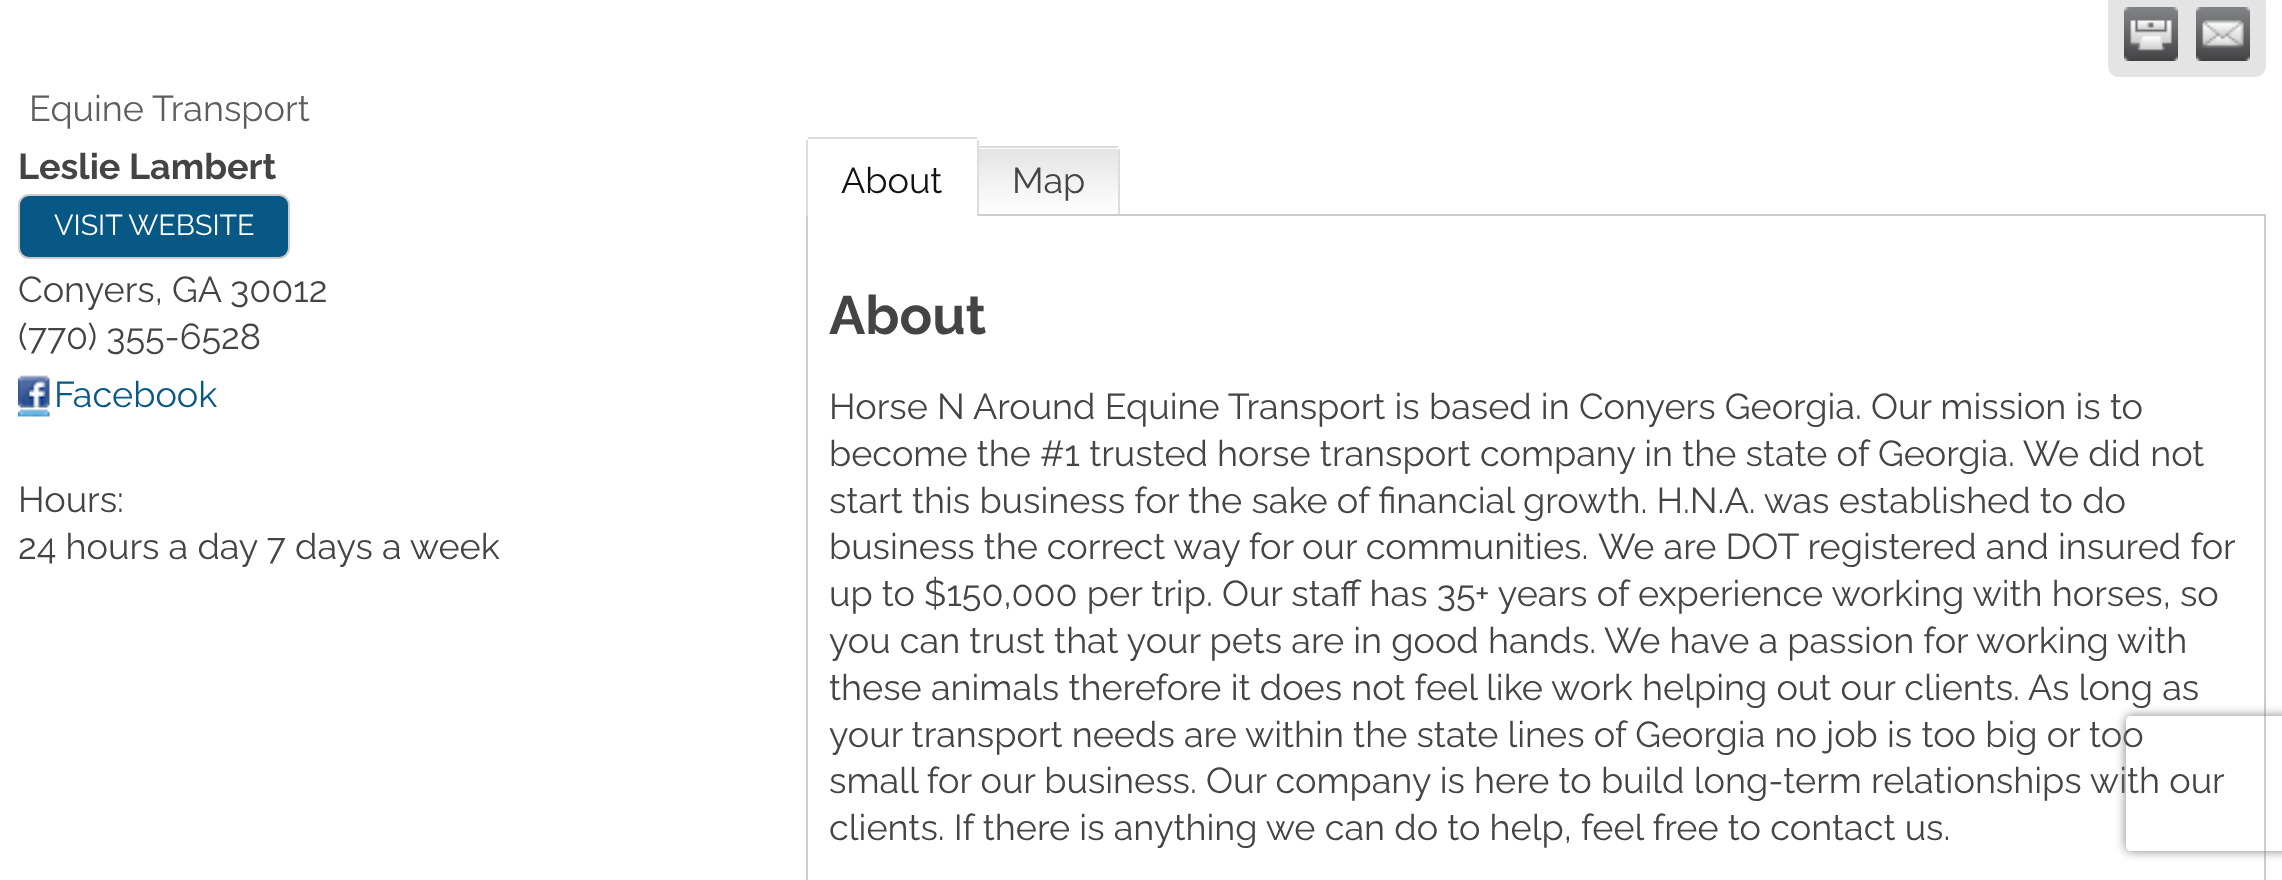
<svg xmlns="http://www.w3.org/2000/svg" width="2282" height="880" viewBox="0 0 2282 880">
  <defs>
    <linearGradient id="g1" gradientUnits="userSpaceOnUse" x1="1049" y1="149" x2="1049" y2="214"><stop offset="0" stop-color="rgb(228,228,228)"/><stop offset="1" stop-color="rgb(255,255,255)"/></linearGradient>
    <clipPath id="clip1"><path d="M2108 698H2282V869H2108ZM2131 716H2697C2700 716 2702 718 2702 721V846C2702 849 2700 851 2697 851H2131C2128 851 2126 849 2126 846V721C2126 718 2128 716 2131 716Z" clip-rule="evenodd"/></clipPath>
  </defs>
  <rect width="100%" height="100%" fill="rgb(255,255,255)"/>
  <rect x="2108" y="-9" width="158" height="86" rx="11" fill="rgb(228,228,228)"/>
  <image x="2124" y="7" width="54" height="54" href="pic1.png"/>
  <image x="2196" y="7" width="54" height="54" href="pic2.png"/>
  <text x="29" y="121" font-family="Raleway" font-size="36" fill="rgb(94,94,94)">Equine Transport</text>
  <text x="18" y="179" font-family="Raleway" font-size="36" font-weight="bold" fill="rgb(68,68,68)">Leslie Lambert</text>
  <rect x="19" y="195" width="270" height="63" rx="10" fill="rgb(7,88,133)" stroke="rgb(204,204,204)" stroke-width="2"/>
  <text x="54" y="235" font-family="Raleway" font-size="28.75" fill="rgb(255,255,255)">VISIT WEBSITE</text>
  <g font-family="Raleway" font-size="36" fill="rgb(68,68,68)">
    <text x="18" y="302">Conyers, GA</text>
    <text x="230" y="302">30012</text>
    <text x="18" y="349">(770) 355-6528</text>
  </g>
  <image x="18" y="375" width="32" height="42" href="pic3.png"/>
  <text x="54" y="407" font-family="Raleway" font-size="36" fill="rgb(7,88,133)">Facebook</text>
  <g font-family="Raleway" font-size="36" fill="rgb(68,68,68)">
    <text>
      <tspan x="18" y="512">Hours:</tspan>
      <tspan x="18" y="559">24 hours a day 7 days a week</tspan>
    </text>
  </g>
  <rect x="807" y="215" width="1458" height="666" fill="none" stroke="rgb(204,204,204)" stroke-width="2"/>
  <path d="M810 140H975C976 140 977 141 977 142V216H808V142C808 141 809 140 810 140Z" fill="rgb(255,255,255)"/>
  <rect x="808" y="137" width="169" height="2" fill="rgb(221,221,221)"/>
  <rect x="977" y="140" width="2" height="76" fill="rgb(221,221,221)"/>
  <rect x="806" y="140" width="2" height="76" fill="rgb(221,221,221)"/>
  <text x="841" y="193" font-family="Raleway" font-size="36" fill="rgb(17,17,17)">About</text>
  <path d="M979 149H1116C1117 149 1118 150 1118 151V214H979Z" fill="url(#g1)"/>
  <rect x="979" y="146" width="139" height="2" fill="rgb(221,221,221)"/>
  <rect x="1118" y="149" width="2" height="65" fill="rgb(221,221,221)"/>
  <text x="1012" y="193" font-family="Raleway" font-size="36" fill="rgb(68,68,68)">Map</text>
  <text x="829" y="334" font-family="Raleway" font-size="54" font-weight="bold" fill="rgb(68,68,68)">About</text>
  <g font-family="Raleway" font-size="36" fill="rgb(68,68,68)">
    <text>
      <tspan x="829" y="419">Horse N Around Equine Transport is based in Conyers Georgia. Our mission is to</tspan>
      <tspan x="829" y="466">become the #1 trusted horse transport company in the state of Georgia. We did not</tspan>
      <tspan x="829" y="513">start this business for the sake of financial growth. H.N.A. was established to do</tspan>
      <tspan x="829" y="559" word-spacing="-0.25">business the correct way for our communities.</tspan>
    </text>
    <text x="1598" y="559">We are DOT registered and insured for</text>
    <text>
      <tspan x="829" y="606">up to $150,000 per trip. Our staff has 35+ years of experience working with horses, so</tspan>
      <tspan x="829" y="653">you can trust that your pets are in good hands. We have a passion for working with</tspan>
      <tspan x="829" y="700">these animals therefore it does not feel like work helping out our clients. As long as</tspan>
      <tspan x="829" y="747">your transport needs are within the state lines of Georgia no job is too big or too</tspan>
      <tspan x="829" y="793">small for our business. Our company is here to build long-term relationships with our</tspan>
      <tspan x="829" y="840">clients. If there is anything we can do to help, feel free to contact us.</tspan>
    </text>
  </g>
  <g clip-path="url(#clip1)">
    <rect x="2126" y="716" width="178" height="135" rx="5" fill="rgb(128,128,128)" filter="blur(5.5px)"/>
  </g>
</svg>
